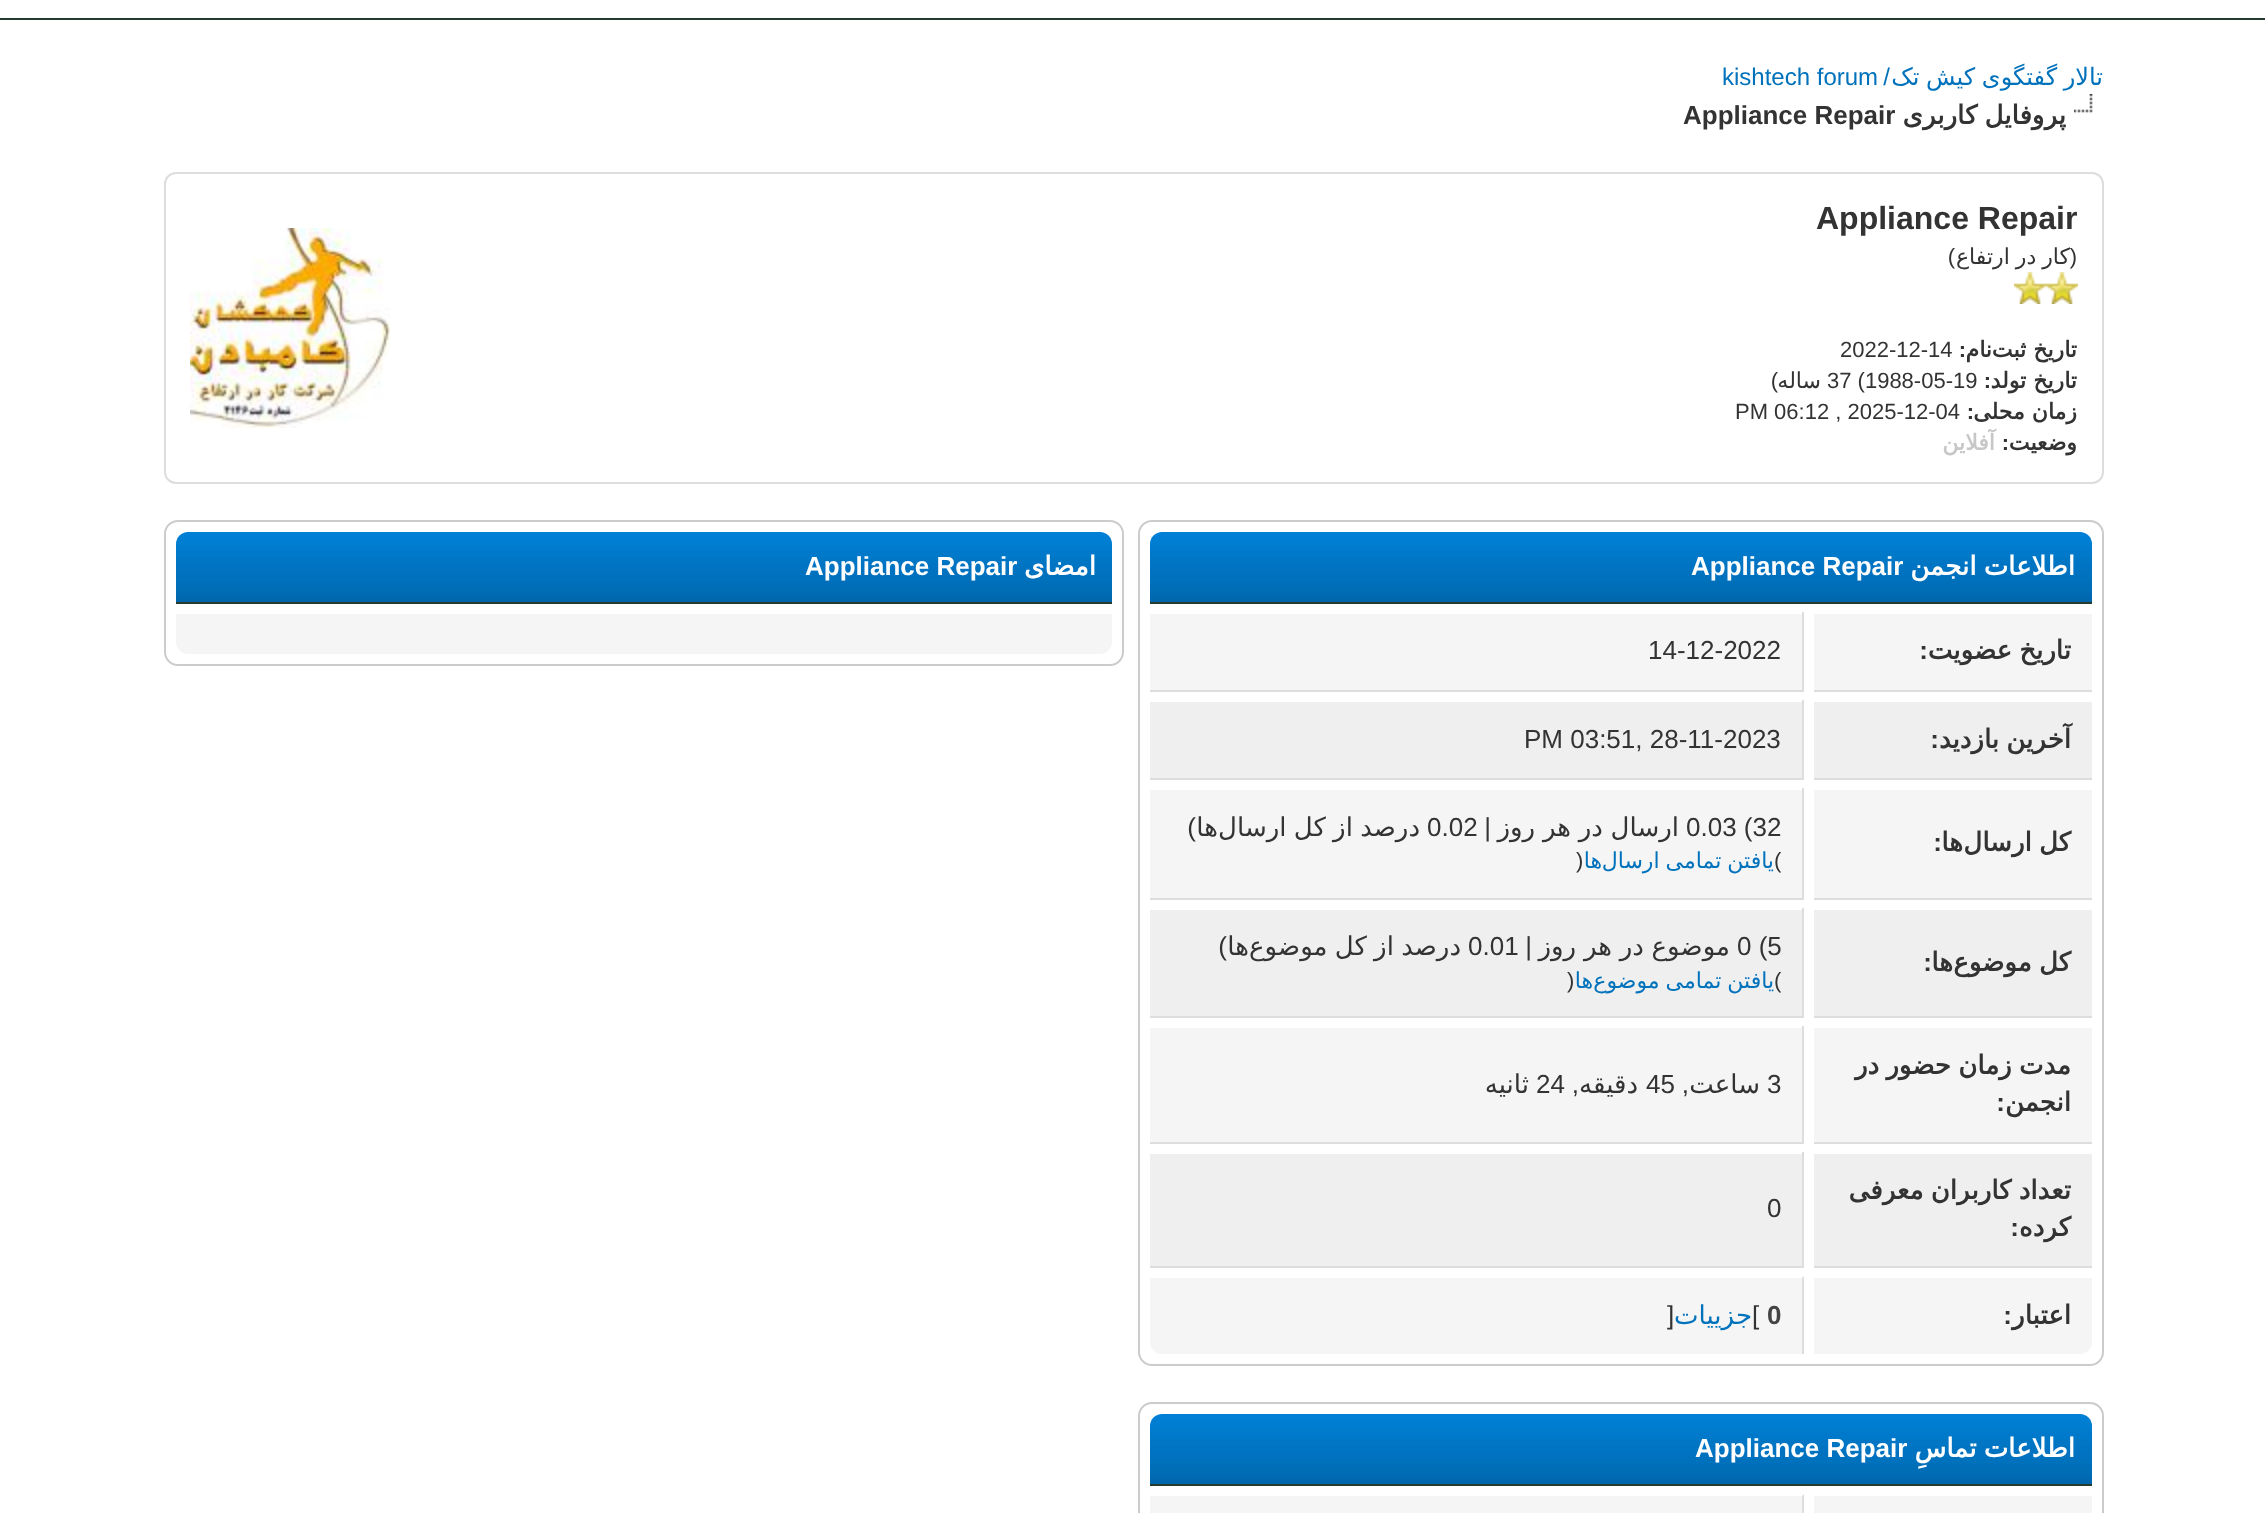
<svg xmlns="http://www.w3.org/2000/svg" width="2265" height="1513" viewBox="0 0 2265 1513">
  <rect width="100%" height="100%" fill="rgb(255,255,255)"/>
  <rect x="0" y="18" width="2265" height="2" fill="rgb(38,60,48)"/>
  <text x="2103" y="85" word-spacing="-1" font-family="DejaVu Sans" font-size="24" direction="rtl" fill="rgb(0,114,188)">تالار گفتگوی کیش تک</text>
  <text x="1890" y="85" font-family="Liberation Sans" font-size="24" direction="rtl" fill="rgb(0,114,188)">/</text>
  <text x="1722" y="85" font-family="Liberation Sans" font-size="24" fill="rgb(0,114,188)">kishtech forum</text>
  <image x="2074" y="94" width="19" height="19" href="pic1.png"/>
  <text x="2066" y="124" word-spacing="-1" font-family="DejaVu Sans" font-size="26" font-weight="bold" direction="rtl" fill="rgb(51,51,51)">پروفایل کاربری</text>
  <text x="1683" y="124" font-family="Liberation Sans" font-size="26" font-weight="bold" fill="rgb(51,51,51)">Appliance Repair</text>
  <rect x="165" y="173" width="1938" height="310" rx="11" fill="none" stroke="rgb(221,221,221)" stroke-width="2"/>
  <text x="1816" y="229" font-family="Liberation Sans" font-size="32" font-weight="bold" fill="rgb(51,51,51)">Appliance Repair</text>
  <text x="2070" y="264" word-spacing="-1" font-family="DejaVu Sans" font-size="22" direction="rtl" fill="rgb(51,51,51)">کار در ارتفاع</text>
  <g font-family="Liberation Sans" font-size="22" direction="rtl" fill="rgb(51,51,51)">
    <text x="2077" y="264">(</text>
    <text x="1955" y="264">)</text>
  </g>
  <image x="2046" y="272" width="32" height="32" href="pic2.png"/>
  <image x="2014" y="272" width="32" height="32" href="pic2.png"/>
  <g font-family="DejaVu Sans" font-size="22" font-weight="bold" direction="rtl" fill="rgb(51,51,51)">
    <text x="2077" y="357">تاریخ ثبت</text>
    <text x="1992" y="357">نام</text>
  </g>
  <text x="1966" y="357" font-family="Liberation Sans" font-size="22" font-weight="bold" direction="rtl" fill="rgb(51,51,51)">:</text>
  <text x="1840" y="357" font-family="Liberation Sans" font-size="22" fill="rgb(51,51,51)">2022-12-14</text>
  <text x="2077" y="388" font-family="DejaVu Sans" font-size="22" font-weight="bold" direction="rtl" fill="rgb(51,51,51)">تاریخ تولد</text>
  <text x="1991" y="388" font-family="Liberation Sans" font-size="22" font-weight="bold" direction="rtl" fill="rgb(51,51,51)">:</text>
  <text x="1827" y="388" font-family="Liberation Sans" font-size="22" fill="rgb(51,51,51)">37 (1988-05-19</text>
  <text x="1821" y="388" font-family="DejaVu Sans" font-size="22" direction="rtl" fill="rgb(51,51,51)">ساله</text>
  <text x="1778" y="388" font-family="Liberation Sans" font-size="22" direction="rtl" fill="rgb(51,51,51)">)</text>
  <text x="2077" y="419" font-family="DejaVu Sans" font-size="22" font-weight="bold" direction="rtl" fill="rgb(51,51,51)">زمان محلی</text>
  <text x="1974" y="419" font-family="Liberation Sans" font-size="22" font-weight="bold" direction="rtl" fill="rgb(51,51,51)">:</text>
  <text x="1735" y="419" font-family="Liberation Sans" font-size="22" fill="rgb(51,51,51)">PM 06:12 , 2025-12-04</text>
  <text x="2077" y="450" font-family="DejaVu Sans" font-size="22" font-weight="bold" direction="rtl" fill="rgb(51,51,51)">وضعیت</text>
  <text x="2009" y="450" font-family="Liberation Sans" font-size="22" font-weight="bold" direction="rtl" fill="rgb(51,51,51)">:</text>
  <text x="1995" y="450" font-family="DejaVu Sans" font-size="22" font-weight="bold" direction="rtl" fill="rgb(199,199,199)">آفلاین</text>
  <image x="190" y="228" width="200" height="200" href="pic3.png"/>
  <rect x="1139" y="521" width="964" height="844" rx="13" fill="none" stroke="rgb(204,204,204)" stroke-width="2"/>
  <image x="1150" y="532" width="942" height="70" href="pic4.png"/>
  <rect x="1150" y="602" width="942" height="2" fill="rgb(38,60,48)"/>
  <text x="2075" y="575" word-spacing="-1" font-family="DejaVu Sans" font-size="26" font-weight="bold" direction="rtl" fill="rgb(255,255,255)">اطلاعات انجمن</text>
  <text x="1691" y="575" font-family="Liberation Sans" font-size="26" font-weight="bold" fill="rgb(255,255,255)">Appliance Repair</text>
  <rect x="1814" y="614" width="278" height="76" fill="rgb(245,245,245)"/>
  <rect x="1812" y="690" width="280" height="2" fill="rgb(221,221,221)"/>
  <rect x="1812" y="690" width="2" height="2" fill="rgb(255,255,255)"/>
  <text x="2071" y="659" word-spacing="-1" font-family="DejaVu Sans" font-size="26" font-weight="bold" direction="rtl" fill="rgb(51,51,51)">تاریخ عضویت</text>
  <text x="1928" y="659" font-family="Liberation Sans" font-size="26" font-weight="bold" direction="rtl" fill="rgb(51,51,51)">:</text>
  <rect x="1150" y="614" width="652" height="76" fill="rgb(245,245,245)"/>
  <rect x="1802" y="612" width="2" height="80" fill="rgb(221,221,221)"/>
  <rect x="1150" y="690" width="654" height="2" fill="rgb(221,221,221)"/>
  <text x="1648" y="659" font-family="Liberation Sans" font-size="26" fill="rgb(51,51,51)">14-12-2022</text>
  <rect x="1814" y="702" width="278" height="76" fill="rgb(239,239,239)"/>
  <rect x="1812" y="778" width="280" height="2" fill="rgb(221,221,221)"/>
  <rect x="1812" y="778" width="2" height="2" fill="rgb(255,255,255)"/>
  <text x="2071" y="748" word-spacing="-1" font-family="DejaVu Sans" font-size="26" font-weight="bold" direction="rtl" fill="rgb(51,51,51)">آخرین بازدید</text>
  <text x="1939" y="748" font-family="Liberation Sans" font-size="26" font-weight="bold" direction="rtl" fill="rgb(51,51,51)">:</text>
  <rect x="1150" y="702" width="652" height="76" fill="rgb(239,239,239)"/>
  <rect x="1802" y="700" width="2" height="80" fill="rgb(221,221,221)"/>
  <rect x="1150" y="778" width="654" height="2" fill="rgb(221,221,221)"/>
  <text x="1524" y="748" font-family="Liberation Sans" font-size="26" fill="rgb(51,51,51)">PM 03:51, 28-11-2023</text>
  <rect x="1814" y="790" width="278" height="108" fill="rgb(245,245,245)"/>
  <rect x="1812" y="898" width="280" height="2" fill="rgb(221,221,221)"/>
  <rect x="1812" y="898" width="2" height="2" fill="rgb(255,255,255)"/>
  <g font-family="DejaVu Sans" font-size="26" font-weight="bold" direction="rtl" fill="rgb(51,51,51)">
    <text x="2071" y="851" word-spacing="-1">کل ارسال</text>
    <text x="1963" y="851">ها</text>
  </g>
  <text x="1942" y="851" font-family="Liberation Sans" font-size="26" font-weight="bold" direction="rtl" fill="rgb(51,51,51)">:</text>
  <rect x="1150" y="790" width="652" height="108" fill="rgb(245,245,245)"/>
  <rect x="1802" y="788" width="2" height="112" fill="rgb(221,221,221)"/>
  <rect x="1150" y="898" width="654" height="2" fill="rgb(221,221,221)"/>
  <text x="1686" y="836" font-family="Liberation Sans" font-size="26" fill="rgb(51,51,51)">0.03 (32</text>
  <text x="1679" y="836" word-spacing="-0.5" font-family="DejaVu Sans" font-size="26" direction="rtl" fill="rgb(51,51,51)">ارسال در هر روز</text>
  <text x="1491" y="836" font-family="Liberation Sans" font-size="26" direction="rtl" fill="rgb(51,51,51)">|</text>
  <text x="1427" y="836" font-family="Liberation Sans" font-size="26" fill="rgb(51,51,51)">0.02</text>
  <g font-family="DejaVu Sans" font-size="26" direction="rtl" fill="rgb(51,51,51)">
    <text x="1420" y="836" word-spacing="-1">درصد از کل ارسال</text>
    <text x="1218" y="836">ها</text>
  </g>
  <text x="1196" y="836" font-family="Liberation Sans" font-size="26" direction="rtl" fill="rgb(51,51,51)">)</text>
  <text x="1774" y="868" font-family="Liberation Sans" font-size="22" fill="rgb(51,51,51)">(</text>
  <g font-family="DejaVu Sans" font-size="22" direction="rtl" fill="rgb(0,114,188)">
    <text x="1774" y="868" word-spacing="-1">یافتن تمامی ارسال</text>
    <text x="1602" y="868">ها</text>
  </g>
  <text x="1576" y="868" font-family="Liberation Sans" font-size="22" fill="rgb(51,51,51)">)</text>
  <rect x="1814" y="910" width="278" height="106" fill="rgb(239,239,239)"/>
  <rect x="1812" y="1016" width="280" height="2" fill="rgb(221,221,221)"/>
  <rect x="1812" y="1016" width="2" height="2" fill="rgb(255,255,255)"/>
  <g font-family="DejaVu Sans" font-size="26" font-weight="bold" direction="rtl" fill="rgb(51,51,51)">
    <text x="2071" y="971" word-spacing="-1">کل موضوع</text>
    <text x="1953" y="971">ها</text>
  </g>
  <text x="1932" y="971" font-family="Liberation Sans" font-size="26" font-weight="bold" direction="rtl" fill="rgb(51,51,51)">:</text>
  <rect x="1150" y="910" width="652" height="106" fill="rgb(239,239,239)"/>
  <rect x="1802" y="908" width="2" height="110" fill="rgb(221,221,221)"/>
  <rect x="1150" y="1016" width="654" height="2" fill="rgb(221,221,221)"/>
  <text x="1737" y="955" font-family="Liberation Sans" font-size="26" fill="rgb(51,51,51)">0 (5</text>
  <text x="1730" y="955" word-spacing="-0.5" font-family="DejaVu Sans" font-size="26" direction="rtl" fill="rgb(51,51,51)">موضوع در هر روز</text>
  <text x="1532" y="955" font-family="Liberation Sans" font-size="26" direction="rtl" fill="rgb(51,51,51)">|</text>
  <text x="1468" y="955" font-family="Liberation Sans" font-size="26" fill="rgb(51,51,51)">0.01</text>
  <g font-family="DejaVu Sans" font-size="26" direction="rtl" fill="rgb(51,51,51)">
    <text x="1461" y="955" word-spacing="-1">درصد از کل موضوع</text>
    <text x="1249" y="955">ها</text>
  </g>
  <text x="1227" y="955" font-family="Liberation Sans" font-size="26" direction="rtl" fill="rgb(51,51,51)">)</text>
  <text x="1774" y="988" font-family="Liberation Sans" font-size="22" fill="rgb(51,51,51)">(</text>
  <g font-family="DejaVu Sans" font-size="22" direction="rtl" fill="rgb(0,114,188)">
    <text x="1774" y="988" word-spacing="-1">یافتن تمامی موضوع</text>
    <text x="1593" y="988">ها</text>
  </g>
  <text x="1567" y="988" font-family="Liberation Sans" font-size="22" fill="rgb(51,51,51)">)</text>
  <rect x="1814" y="1028" width="278" height="114" fill="rgb(245,245,245)"/>
  <rect x="1812" y="1142" width="280" height="2" fill="rgb(221,221,221)"/>
  <rect x="1812" y="1142" width="2" height="2" fill="rgb(255,255,255)"/>
  <g font-family="DejaVu Sans" font-size="26" font-weight="bold" direction="rtl" fill="rgb(51,51,51)">
    <text>
      <tspan x="2071" y="1074" word-spacing="-1">مدت زمان حضور در</tspan>
      <tspan x="2071" y="1111">انجمن</tspan>
    </text>
  </g>
  <text x="2005" y="1111" font-family="Liberation Sans" font-size="26" font-weight="bold" direction="rtl" fill="rgb(51,51,51)">:</text>
  <rect x="1150" y="1028" width="652" height="114" fill="rgb(245,245,245)"/>
  <rect x="1802" y="1026" width="2" height="118" fill="rgb(221,221,221)"/>
  <rect x="1150" y="1142" width="654" height="2" fill="rgb(221,221,221)"/>
  <text x="1767" y="1093" font-family="Liberation Sans" font-size="26" fill="rgb(51,51,51)">3</text>
  <text x="1760" y="1093" font-family="DejaVu Sans" font-size="26" direction="rtl" fill="rgb(51,51,51)">ساعت</text>
  <text x="1689" y="1093" font-family="Liberation Sans" font-size="26" direction="rtl" fill="rgb(51,51,51)">,</text>
  <text x="1646" y="1093" font-family="Liberation Sans" font-size="26" fill="rgb(51,51,51)">45</text>
  <text x="1638" y="1093" font-family="DejaVu Sans" font-size="26" direction="rtl" fill="rgb(51,51,51)">دقیقه</text>
  <text x="1579" y="1093" font-family="Liberation Sans" font-size="26" direction="rtl" fill="rgb(51,51,51)">,</text>
  <text x="1536" y="1093" font-family="Liberation Sans" font-size="26" fill="rgb(51,51,51)">24</text>
  <text x="1529" y="1093" font-family="DejaVu Sans" font-size="26" direction="rtl" fill="rgb(51,51,51)">ثانیه</text>
  <rect x="1814" y="1154" width="278" height="112" fill="rgb(239,239,239)"/>
  <rect x="1812" y="1266" width="280" height="2" fill="rgb(221,221,221)"/>
  <rect x="1812" y="1266" width="2" height="2" fill="rgb(255,255,255)"/>
  <g font-family="DejaVu Sans" font-size="26" font-weight="bold" direction="rtl" fill="rgb(51,51,51)">
    <text>
      <tspan x="2071" y="1199" word-spacing="-1">تعداد کاربران معرفی</tspan>
      <tspan x="2071" y="1236">کرده</tspan>
    </text>
  </g>
  <text x="2019" y="1236" font-family="Liberation Sans" font-size="26" font-weight="bold" direction="rtl" fill="rgb(51,51,51)">:</text>
  <rect x="1150" y="1154" width="652" height="112" fill="rgb(239,239,239)"/>
  <rect x="1802" y="1152" width="2" height="116" fill="rgb(221,221,221)"/>
  <rect x="1150" y="1266" width="654" height="2" fill="rgb(221,221,221)"/>
  <text x="1767" y="1217" font-family="Liberation Sans" font-size="26" fill="rgb(51,51,51)">0</text>
  <path d="M1812 1276H2092V1342C2092 1348.5 2086.5 1354 2080 1354H1812Z" fill="rgb(245,245,245)"/>
  <rect x="1812" y="1276" width="280" height="2" fill="rgb(255,255,255)"/>
  <rect x="1812" y="1276" width="2" height="78" fill="rgb(255,255,255)"/>
  <text x="2071" y="1324" font-family="DejaVu Sans" font-size="26" font-weight="bold" direction="rtl" fill="rgb(51,51,51)">اعتبار</text>
  <text x="2012" y="1324" font-family="Liberation Sans" font-size="26" font-weight="bold" direction="rtl" fill="rgb(51,51,51)">:</text>
  <path d="M1150 1276H1804V1354H1162C1155.5 1354 1150 1348.5 1150 1342Z" fill="rgb(245,245,245)"/>
  <path d="M1150 1276V1278H1802L1804 1276Z" fill="rgb(255,255,255)"/>
  <path d="M1804 1276L1802 1278V1354H1804Z" fill="rgb(221,221,221)"/>
  <text x="1767" y="1324" font-family="Liberation Sans" font-size="26" font-weight="bold" fill="rgb(68,68,68)">0</text>
  <text x="1752" y="1324" font-family="Liberation Sans" font-size="26" fill="rgb(51,51,51)">[</text>
  <text x="1752" y="1324" font-family="DejaVu Sans" font-size="26" direction="rtl" fill="rgb(0,114,188)">جزییات</text>
  <text x="1667" y="1324" font-family="Liberation Sans" font-size="26" fill="rgb(51,51,51)">]</text>
  <rect x="1139" y="1403" width="964" height="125" rx="13" fill="none" stroke="rgb(204,204,204)" stroke-width="2"/>
  <image x="1150" y="1414" width="942" height="70" href="pic4.png"/>
  <rect x="1150" y="1484" width="942" height="2" fill="rgb(38,60,48)"/>
  <text x="2075" y="1457" word-spacing="-1" font-family="DejaVu Sans" font-size="26" font-weight="bold" direction="rtl" fill="rgb(255,255,255)">اطلاعات تماسِ</text>
  <text x="1695" y="1457" font-family="Liberation Sans" font-size="26" font-weight="bold" fill="rgb(255,255,255)">Appliance Repair</text>
  <rect x="1814" y="1496" width="278" height="17" fill="rgb(245,245,245)"/>
  <rect x="1150" y="1494" width="654" height="19" fill="rgb(245,245,245)"/>
  <path d="M1150 1494V1496H1802L1804 1494Z" fill="rgb(255,255,255)"/>
  <path d="M1804 1494L1802 1496V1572H1804Z" fill="rgb(221,221,221)"/>
  <rect x="165" y="521" width="958" height="144" rx="13" fill="none" stroke="rgb(204,204,204)" stroke-width="2"/>
  <image x="176" y="532" width="936" height="70" href="pic5.png"/>
  <rect x="176" y="602" width="936" height="2" fill="rgb(38,60,48)"/>
  <text x="1096" y="575" font-family="DejaVu Sans" font-size="26" font-weight="bold" direction="rtl" fill="rgb(255,255,255)">امضای</text>
  <text x="805" y="575" font-family="Liberation Sans" font-size="26" font-weight="bold" fill="rgb(255,255,255)">Appliance Repair</text>
  <path d="M176 612H1112V642C1112 648.5 1106.5 654 1100 654H188C181.5 654 176 648.5 176 642Z" fill="rgb(245,245,245)"/>
  <rect x="176" y="612" width="936" height="2" fill="rgb(255,255,255)"/>
</svg>
